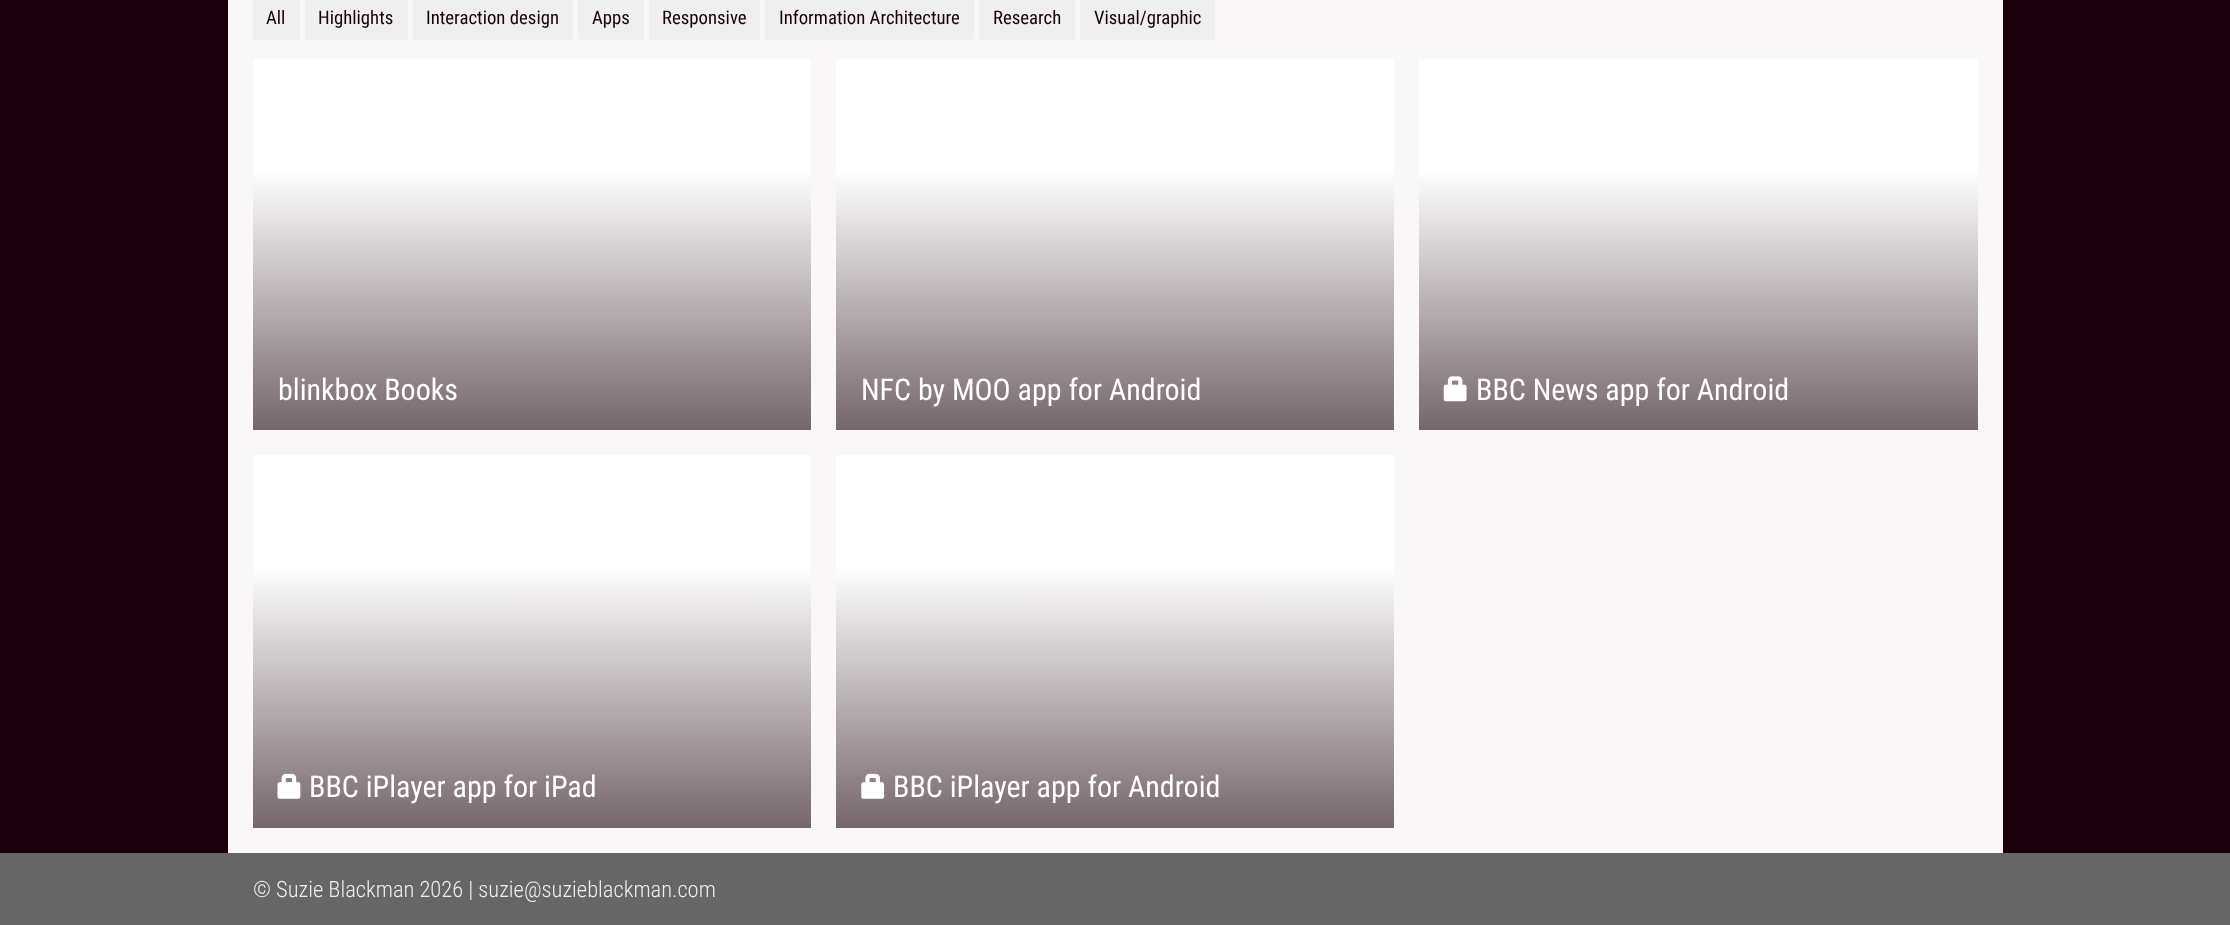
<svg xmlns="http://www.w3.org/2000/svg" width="2230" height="925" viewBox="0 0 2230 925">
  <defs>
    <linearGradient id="g1" gradientUnits="userSpaceOnUse" x1="532" y1="59" x2="532" y2="430"><stop offset="0" stop-color="rgb(255,255,255)"/><stop offset="0.3" stop-color="rgb(255,255,255)"/><stop offset="1" stop-color="rgb(117,102,108)"/></linearGradient>
    <linearGradient id="g2" gradientUnits="userSpaceOnUse" x1="1115" y1="59" x2="1115" y2="430"><stop offset="0" stop-color="rgb(255,255,255)"/><stop offset="0.3" stop-color="rgb(255,255,255)"/><stop offset="1" stop-color="rgb(117,102,108)"/></linearGradient>
    <linearGradient id="g3" gradientUnits="userSpaceOnUse" x1="1698" y1="59" x2="1698" y2="430"><stop offset="0" stop-color="rgb(255,255,255)"/><stop offset="0.3" stop-color="rgb(255,255,255)"/><stop offset="1" stop-color="rgb(117,102,108)"/></linearGradient>
    <linearGradient id="g4" gradientUnits="userSpaceOnUse" x1="532" y1="455" x2="532" y2="828"><stop offset="0" stop-color="rgb(255,255,255)"/><stop offset="0.3" stop-color="rgb(255,255,255)"/><stop offset="1" stop-color="rgb(117,102,108)"/></linearGradient>
    <linearGradient id="g5" gradientUnits="userSpaceOnUse" x1="1115" y1="455" x2="1115" y2="828"><stop offset="0" stop-color="rgb(255,255,255)"/><stop offset="0.3" stop-color="rgb(255,255,255)"/><stop offset="1" stop-color="rgb(117,102,108)"/></linearGradient>
  </defs>
  <rect width="100%" height="100%" fill="rgb(102,102,102)"/>
  <rect x="0" y="0" width="2230" height="853" fill="rgb(25,0,10)"/>
  <rect x="228" y="0" width="1775" height="853" fill="rgb(249,247,248)"/>
  <rect x="253" y="-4" width="47" height="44" rx="4" fill="rgb(239,239,239)"/>
  <text x="266" y="24" font-family="Roboto Condensed" font-size="18.75" fill="rgb(25,0,10)">All</text>
  <rect x="305" y="-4" width="103" height="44" rx="4" fill="rgb(239,239,239)"/>
  <text x="318" y="24" font-family="Roboto Condensed" font-size="18.75" fill="rgb(25,0,10)">Highlights</text>
  <rect x="413" y="-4" width="160" height="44" rx="4" fill="rgb(239,239,239)"/>
  <text x="426" y="24" font-family="Roboto Condensed" font-size="18.75" fill="rgb(25,0,10)">Interaction design</text>
  <rect x="578" y="-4" width="66" height="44" rx="4" fill="rgb(239,239,239)"/>
  <text x="592" y="24" font-family="Roboto Condensed" font-size="18.75" fill="rgb(25,0,10)">Apps</text>
  <rect x="649" y="-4" width="111" height="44" rx="4" fill="rgb(239,239,239)"/>
  <text x="662" y="24" font-family="Roboto Condensed" font-size="18.75" fill="rgb(25,0,10)">Responsive</text>
  <rect x="765" y="-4" width="209" height="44" rx="4" fill="rgb(239,239,239)"/>
  <text x="779" y="24" font-family="Roboto Condensed" font-size="18.75" fill="rgb(25,0,10)">Information Architecture</text>
  <rect x="979" y="-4" width="96" height="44" rx="4" fill="rgb(239,239,239)"/>
  <text x="993" y="24" font-family="Roboto Condensed" font-size="18.75" fill="rgb(25,0,10)">Research</text>
  <rect x="1080" y="-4" width="135" height="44" rx="4" fill="rgb(239,239,239)"/>
  <text x="1094" y="24" font-family="Roboto Condensed" font-size="18.75" fill="rgb(25,0,10)">Visual/graphic</text>
  <rect x="253" y="59" width="558" height="371" fill="url(#g1)"/>
  <text x="278" y="400" font-family="Roboto Condensed" font-size="30" fill="rgb(255,255,255)">blinkbox Books</text>
  <rect x="836" y="59" width="558" height="371" fill="url(#g2)"/>
  <text x="861" y="400" font-family="Roboto Condensed" font-size="30" fill="rgb(255,255,255)">NFC by MOO app for Android</text>
  <rect x="1419" y="59" width="559" height="371" fill="url(#g3)"/>
  <image x="1443" y="376" width="24" height="26" href="pic1.png"/>
  <text x="1476" y="400" font-family="Roboto Condensed" font-size="30" fill="rgb(255,255,255)">BBC News app for Android</text>
  <rect x="253" y="455" width="558" height="373" fill="url(#g4)"/>
  <image x="277" y="773" width="24" height="26" href="pic2.png"/>
  <text x="309" y="797" font-family="Roboto Condensed" font-size="30" fill="rgb(255,255,255)">BBC iPlayer app for iPad</text>
  <rect x="836" y="455" width="558" height="373" fill="url(#g5)"/>
  <image x="861" y="773" width="24" height="26" href="pic3.png"/>
  <text x="893" y="797" font-family="Roboto Condensed" font-size="30" fill="rgb(255,255,255)">BBC iPlayer app for Android</text>
  <text x="253" y="897" font-family="Roboto Condensed" font-size="22.5" font-weight="300" fill="rgb(238,238,238)">© Suzie Blackman 2026 | suzie@suzieblackman.com</text>
</svg>
